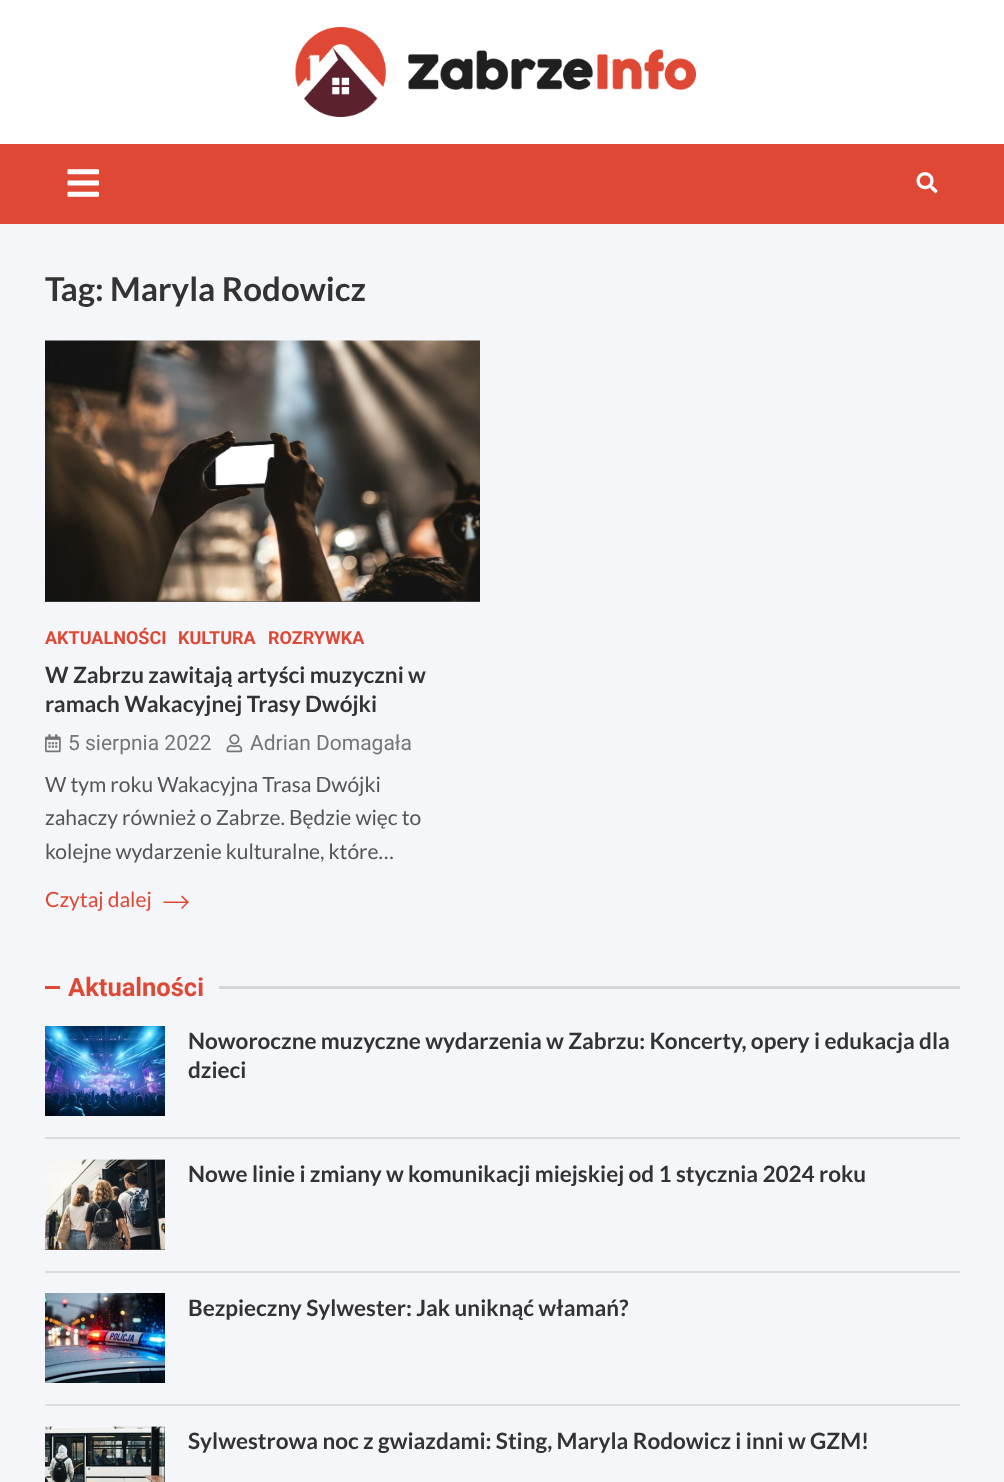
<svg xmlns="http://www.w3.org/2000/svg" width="1004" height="1482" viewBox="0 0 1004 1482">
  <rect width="100%" height="100%" fill="rgb(244,246,249)"/>
  <rect x="0" y="0" width="1004" height="144" fill="rgb(255,255,255)"/>
  <image x="295" y="27" width="401" height="90" href="pic1.png"/>
  <rect x="0" y="144" width="1004" height="80" fill="rgb(223,72,52)"/>
  <image x="67" y="169" width="32" height="28" href="pic2.png"/>
  <image x="916" y="172" width="22" height="22" href="pic3.png"/>
  <text x="45" y="301" font-family="Lato" font-size="33" font-weight="bold" fill="rgb(51,51,51)">Tag: Maryla Rodowicz</text>
  <rect x="45" y="601" width="435" height="1" fill="rgb(85,85,85)"/>
  <image x="45" y="340" width="435" height="262" href="pic4.png"/>
  <g font-family="Roboto" font-size="18" font-weight="bold" fill="rgb(223,72,52)">
    <text x="45" y="644">AKTUALNOŚCI</text>
    <text x="178" y="644">KULTURA</text>
    <text x="268" y="644">ROZRYWKA</text>
  </g>
  <g font-family="Lato" font-size="22.5" font-weight="bold" fill="rgb(51,51,51)">
    <text>
      <tspan x="45" y="683">W Zabrzu zawitają artyści muzyczni w</tspan>
      <tspan x="45" y="712">ramach Wakacyjnej Trasy Dwójki</tspan>
    </text>
  </g>
  <image x="45" y="734" width="16" height="19" href="pic5.png"/>
  <text x="68" y="750" font-family="Roboto" font-size="21" fill="rgb(117,117,118)">5 sierpnia 2022</text>
  <image x="226" y="734" width="17" height="19" href="pic6.png"/>
  <text x="250" y="750" font-family="Roboto" font-size="21" fill="rgb(117,117,118)">Adrian Domagała</text>
  <g font-family="Lato" font-size="21" fill="rgb(85,85,85)">
    <text>
      <tspan x="45" y="792">W tym roku Wakacyjna Trasa Dwójki</tspan>
      <tspan x="45" y="825">zahaczy również o Zabrze. Będzie więc to</tspan>
      <tspan x="45" y="859">kolejne wydarzenie kulturalne, które…</tspan>
    </text>
  </g>
  <text x="45" y="907" font-family="Lato" font-size="21" fill="rgb(223,72,52)">Czytaj dalej</text>
  <path d="M182 895.5L181 896.5L186 901.5H163.5V903H186L181 908L182 909L189 902Z" fill="rgb(223,72,52)"/>
  <rect x="45" y="986" width="15" height="3" fill="rgb(223,72,52)"/>
  <text x="68" y="996" font-family="Roboto" font-size="25.5" font-weight="bold" fill="rgb(223,72,52)">Aktualności</text>
  <rect x="219" y="986" width="741" height="3" fill="rgb(212,214,216)"/>
  <image x="45" y="1026" width="120" height="90" href="pic7.png"/>
  <g font-family="Lato" font-size="22.5" font-weight="bold" fill="rgb(51,51,51)">
    <text>
      <tspan x="188" y="1049">Noworoczne muzyczne wydarzenia w Zabrzu: Koncerty, opery i edukacja dla</tspan>
      <tspan x="188" y="1078">dzieci</tspan>
    </text>
  </g>
  <rect x="45" y="1137" width="915" height="2" fill="rgb(220,221,224)"/>
  <rect x="45" y="1249" width="120" height="1" fill="rgb(85,85,85)"/>
  <image x="45" y="1159" width="120" height="91" href="pic8.png"/>
  <text x="188" y="1182" font-family="Lato" font-size="22.5" font-weight="bold" fill="rgb(51,51,51)">Nowe linie i zmiany w komunikacji miejskiej od 1 stycznia 2024 roku</text>
  <rect x="45" y="1271" width="915" height="2" fill="rgb(220,221,224)"/>
  <image x="45" y="1293" width="120" height="90" href="pic9.png"/>
  <text x="188" y="1316" font-family="Lato" font-size="22.5" font-weight="bold" fill="rgb(51,51,51)">Bezpieczny Sylwester: Jak uniknąć włamań?</text>
  <rect x="45" y="1404" width="915" height="2" fill="rgb(220,221,224)"/>
  <image x="45" y="1426" width="120" height="56" href="pic10.png"/>
  <text x="188" y="1449" font-family="Lato" font-size="22.5" font-weight="bold" fill="rgb(51,51,51)">Sylwestrowa noc z gwiazdami: Sting, Maryla Rodowicz i inni w GZM!</text>
</svg>
